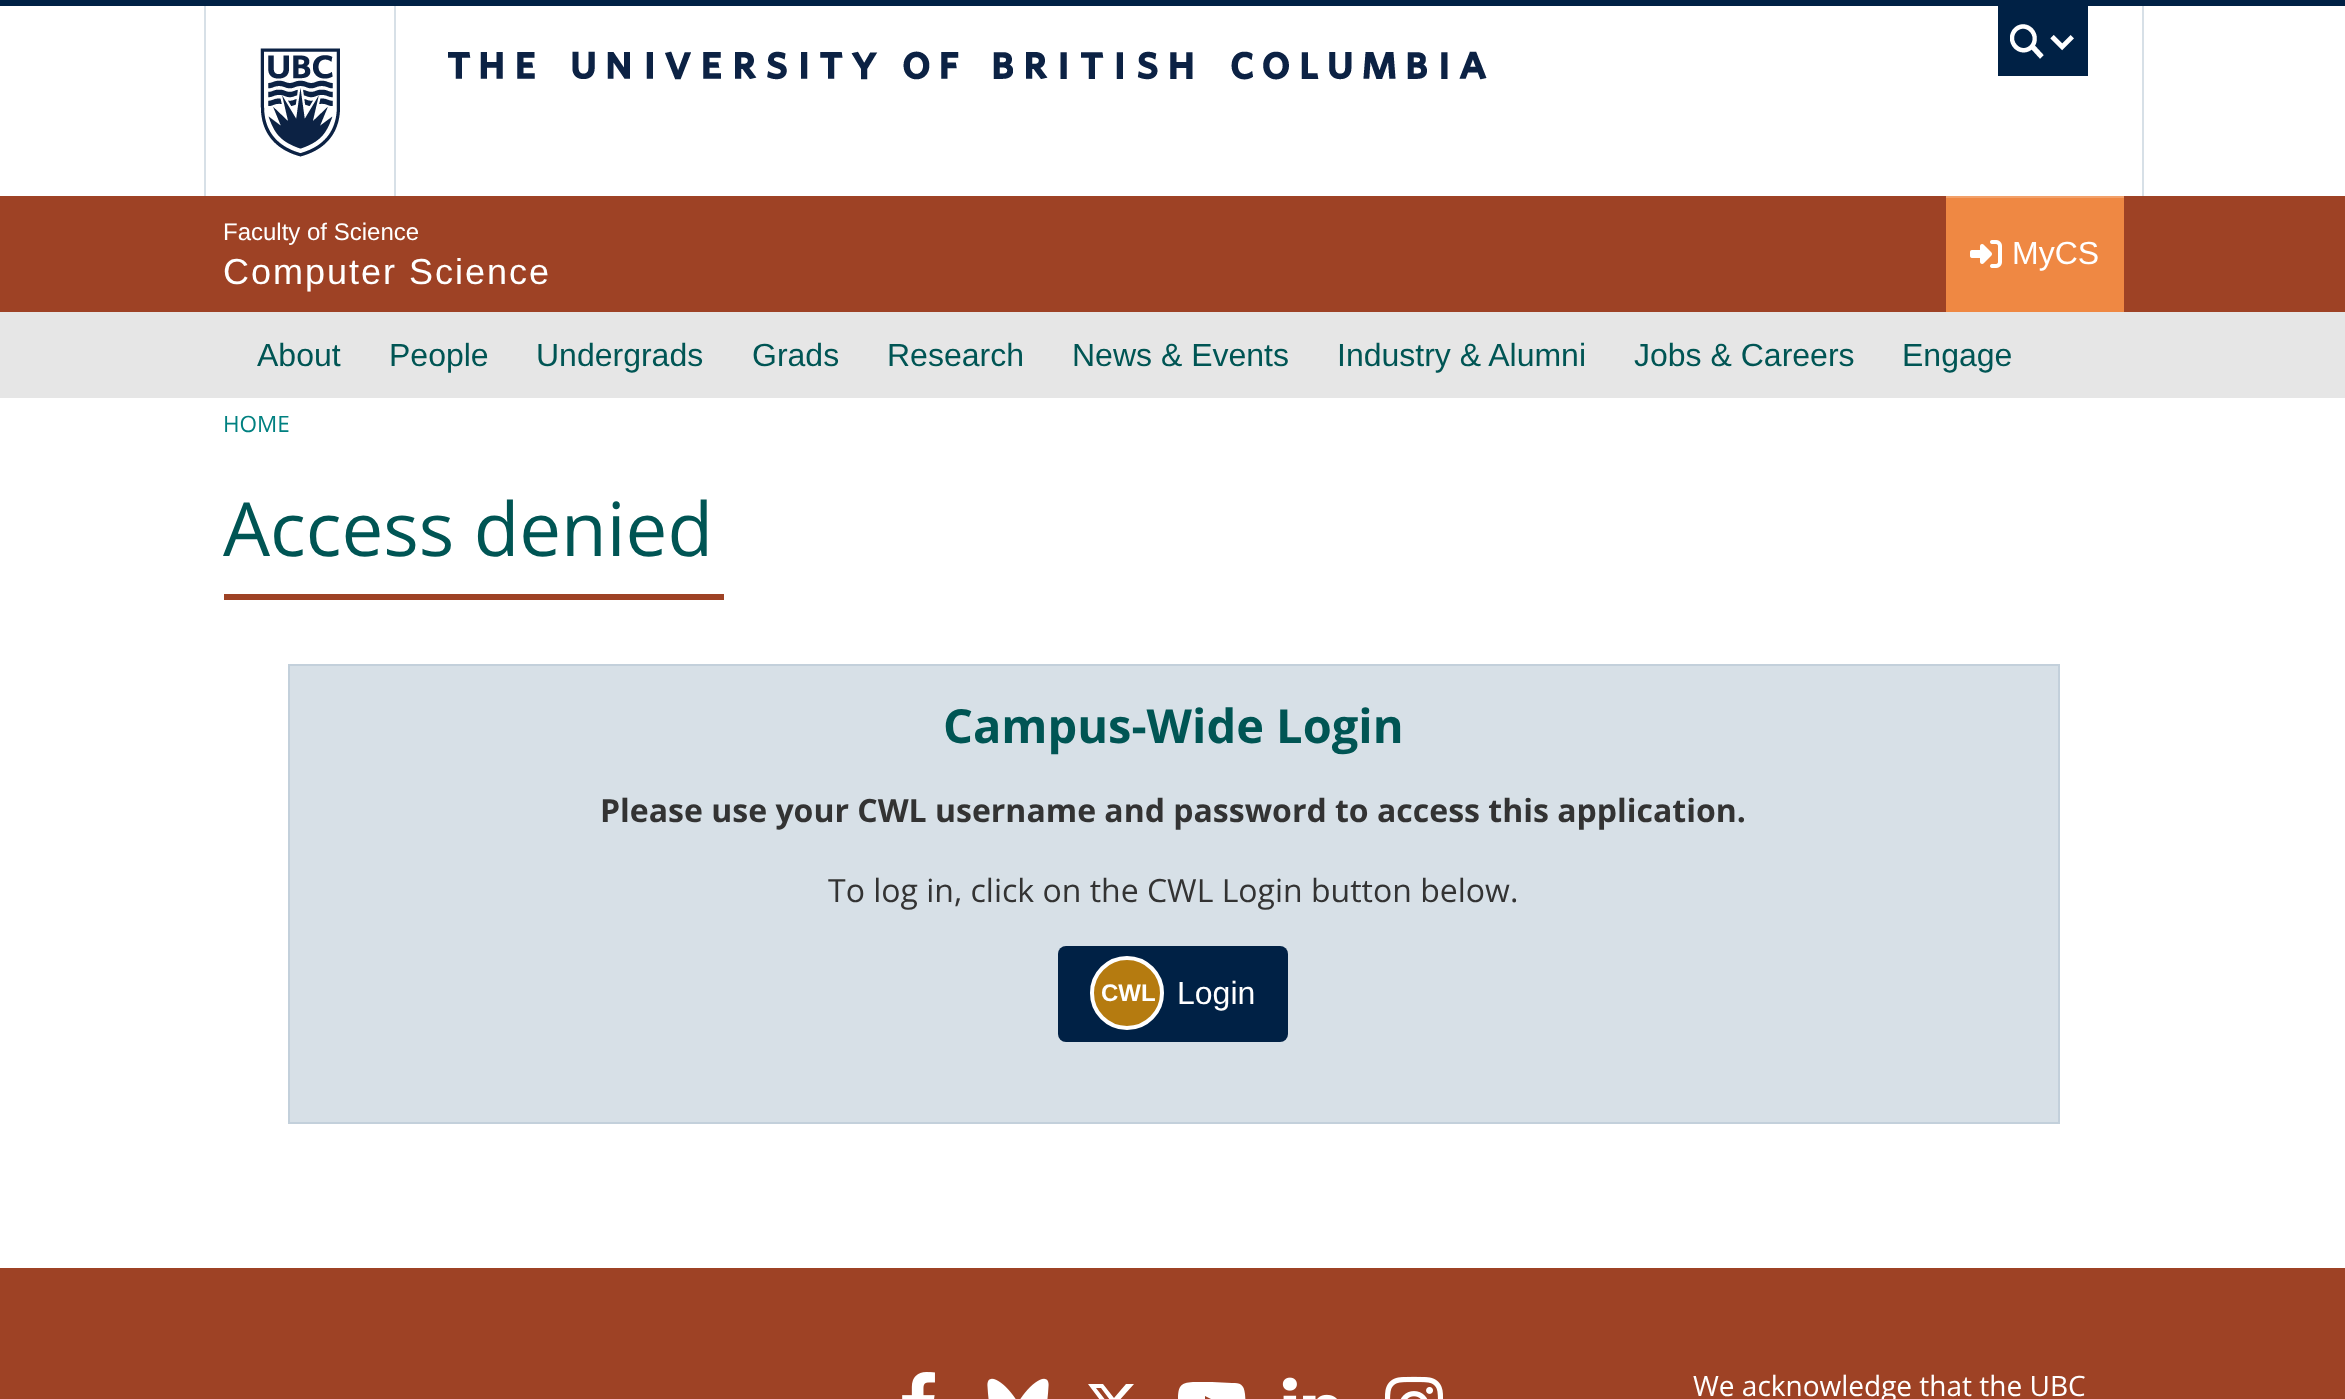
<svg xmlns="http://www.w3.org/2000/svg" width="2345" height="1399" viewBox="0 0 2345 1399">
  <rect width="100%" height="100%" fill="rgb(255,255,255)"/>
  <rect x="0" y="0" width="2345" height="6" fill="rgb(0,33,69)"/>
  <rect x="2142" y="6" width="2" height="190" fill="rgb(215,224,231)"/>
  <rect x="204" y="6" width="2" height="190" fill="rgb(215,224,231)"/>
  <image x="260" y="48" width="80" height="109" href="pic1.png"/>
  <image x="448" y="51" width="1039" height="29" href="pic2.png"/>
  <rect x="394" y="6" width="2" height="190" fill="rgb(215,224,231)"/>
  <rect x="1998" y="6" width="90" height="70" fill="rgb(0,33,69)"/>
  <image x="2010" y="24" width="64" height="35" href="pic3.png"/>
  <rect x="0" y="196" width="2345" height="116" fill="rgb(158,66,37)"/>
  <text x="223" y="240" font-family="Liberation Sans" font-size="24" fill="rgb(255,255,255)">Faculty of Science</text>
  <text x="223" y="284" font-family="Liberation Sans" font-size="36" letter-spacing="2" fill="rgb(255,255,255)">Computer Science</text>
  <rect x="1946" y="198" width="178" height="114" fill="rgb(239,136,67)"/>
  <rect x="1946" y="196" width="178" height="2" fill="rgb(242,160,105)"/>
  <image x="1970" y="240" width="32" height="28" href="pic4.png"/>
  <text x="2012" y="264" font-family="Liberation Sans" font-size="32" fill="rgb(255,255,255)">MyCS</text>
  <rect x="0" y="312" width="2345" height="86" fill="rgb(230,230,230)"/>
  <g font-family="Liberation Sans" font-size="32" fill="rgb(0,85,84)">
    <text x="257" y="366">About</text>
    <text x="389" y="366">People</text>
    <text x="536" y="366">Undergrads</text>
    <text x="752" y="366">Grads</text>
    <text x="887" y="366">Research</text>
    <text x="1072" y="366">News &amp; Events</text>
    <text x="1337" y="366">Industry &amp; Alumni</text>
    <text x="1634" y="366">Jobs &amp; Careers</text>
    <text x="1902" y="366">Engage</text>
  </g>
  <text x="223" y="432" font-family="Open Sans" font-size="22.5" fill="rgb(0,128,128)">HOME</text>
  <text x="223" y="556" font-family="Open Sans" font-size="74.5" fill="rgb(0,85,84)">Access denied</text>
  <rect x="224" y="594" width="500" height="6" fill="rgb(158,66,37)"/>
  <rect x="289" y="665" width="1770" height="458" fill="rgb(215,224,231)" stroke="rgb(195,208,219)" stroke-width="2"/>
  <text x="943" y="743" font-family="Open Sans" font-size="47" font-weight="bold" fill="rgb(0,85,84)">Campus-Wide Login</text>
  <text x="600" y="822" font-family="Open Sans" font-size="32" font-weight="bold" fill="rgb(51,51,51)">Please use your CWL username and password to access this application.</text>
  <text x="828" y="902" font-family="Open Sans" font-size="32" fill="rgb(51,51,51)">To log in, click on the CWL Login button below.</text>
  <rect x="1058" y="946" width="230" height="96" rx="8" fill="rgb(0,33,69)"/>
  <circle cx="1127" cy="993" r="35" fill="rgb(181,123,16)" stroke="rgb(255,255,255)" stroke-width="4"/>
  <text x="1101" y="1001" font-family="Liberation Sans" font-size="24" font-weight="bold" fill="rgb(255,255,255)">CWL</text>
  <text x="1177" y="1004" font-family="Liberation Sans" font-size="32" fill="rgb(255,255,255)">Login</text>
  <rect x="0" y="1268" width="2345" height="131" fill="rgb(158,66,37)"/>
  <image x="902" y="1372" width="33" height="27" href="pic5.png"/>
  <image x="987" y="1378" width="62" height="21" href="pic6.png"/>
  <path d="M1126 1384H1134L1117 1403L1137 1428H1121L1110 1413L1096 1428H1089L1106 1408L1088 1384H1103L1114 1398ZM1124 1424H1128L1101 1388H1096Z" fill="rgb(255,255,255)"/>
  <path d="M1205 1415L1223 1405L1205 1396ZM1212 1382L1232 1383C1240 1383 1244 1384 1245 1394L1246 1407C1246 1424 1246 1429 1231 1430H1212L1193 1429C1184 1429 1180 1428 1179 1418L1178 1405C1178 1388 1178 1383 1193 1382Z" fill="rgb(255,255,255)"/>
  <image x="1282" y="1377" width="55" height="22" href="pic7.png"/>
  <image x="1384" y="1376" width="60" height="23" href="pic8.png"/>
  <text x="1693" y="1396" font-family="Open Sans" font-size="28" fill="rgb(255,255,255)">We acknowledge that the UBC</text>
</svg>
